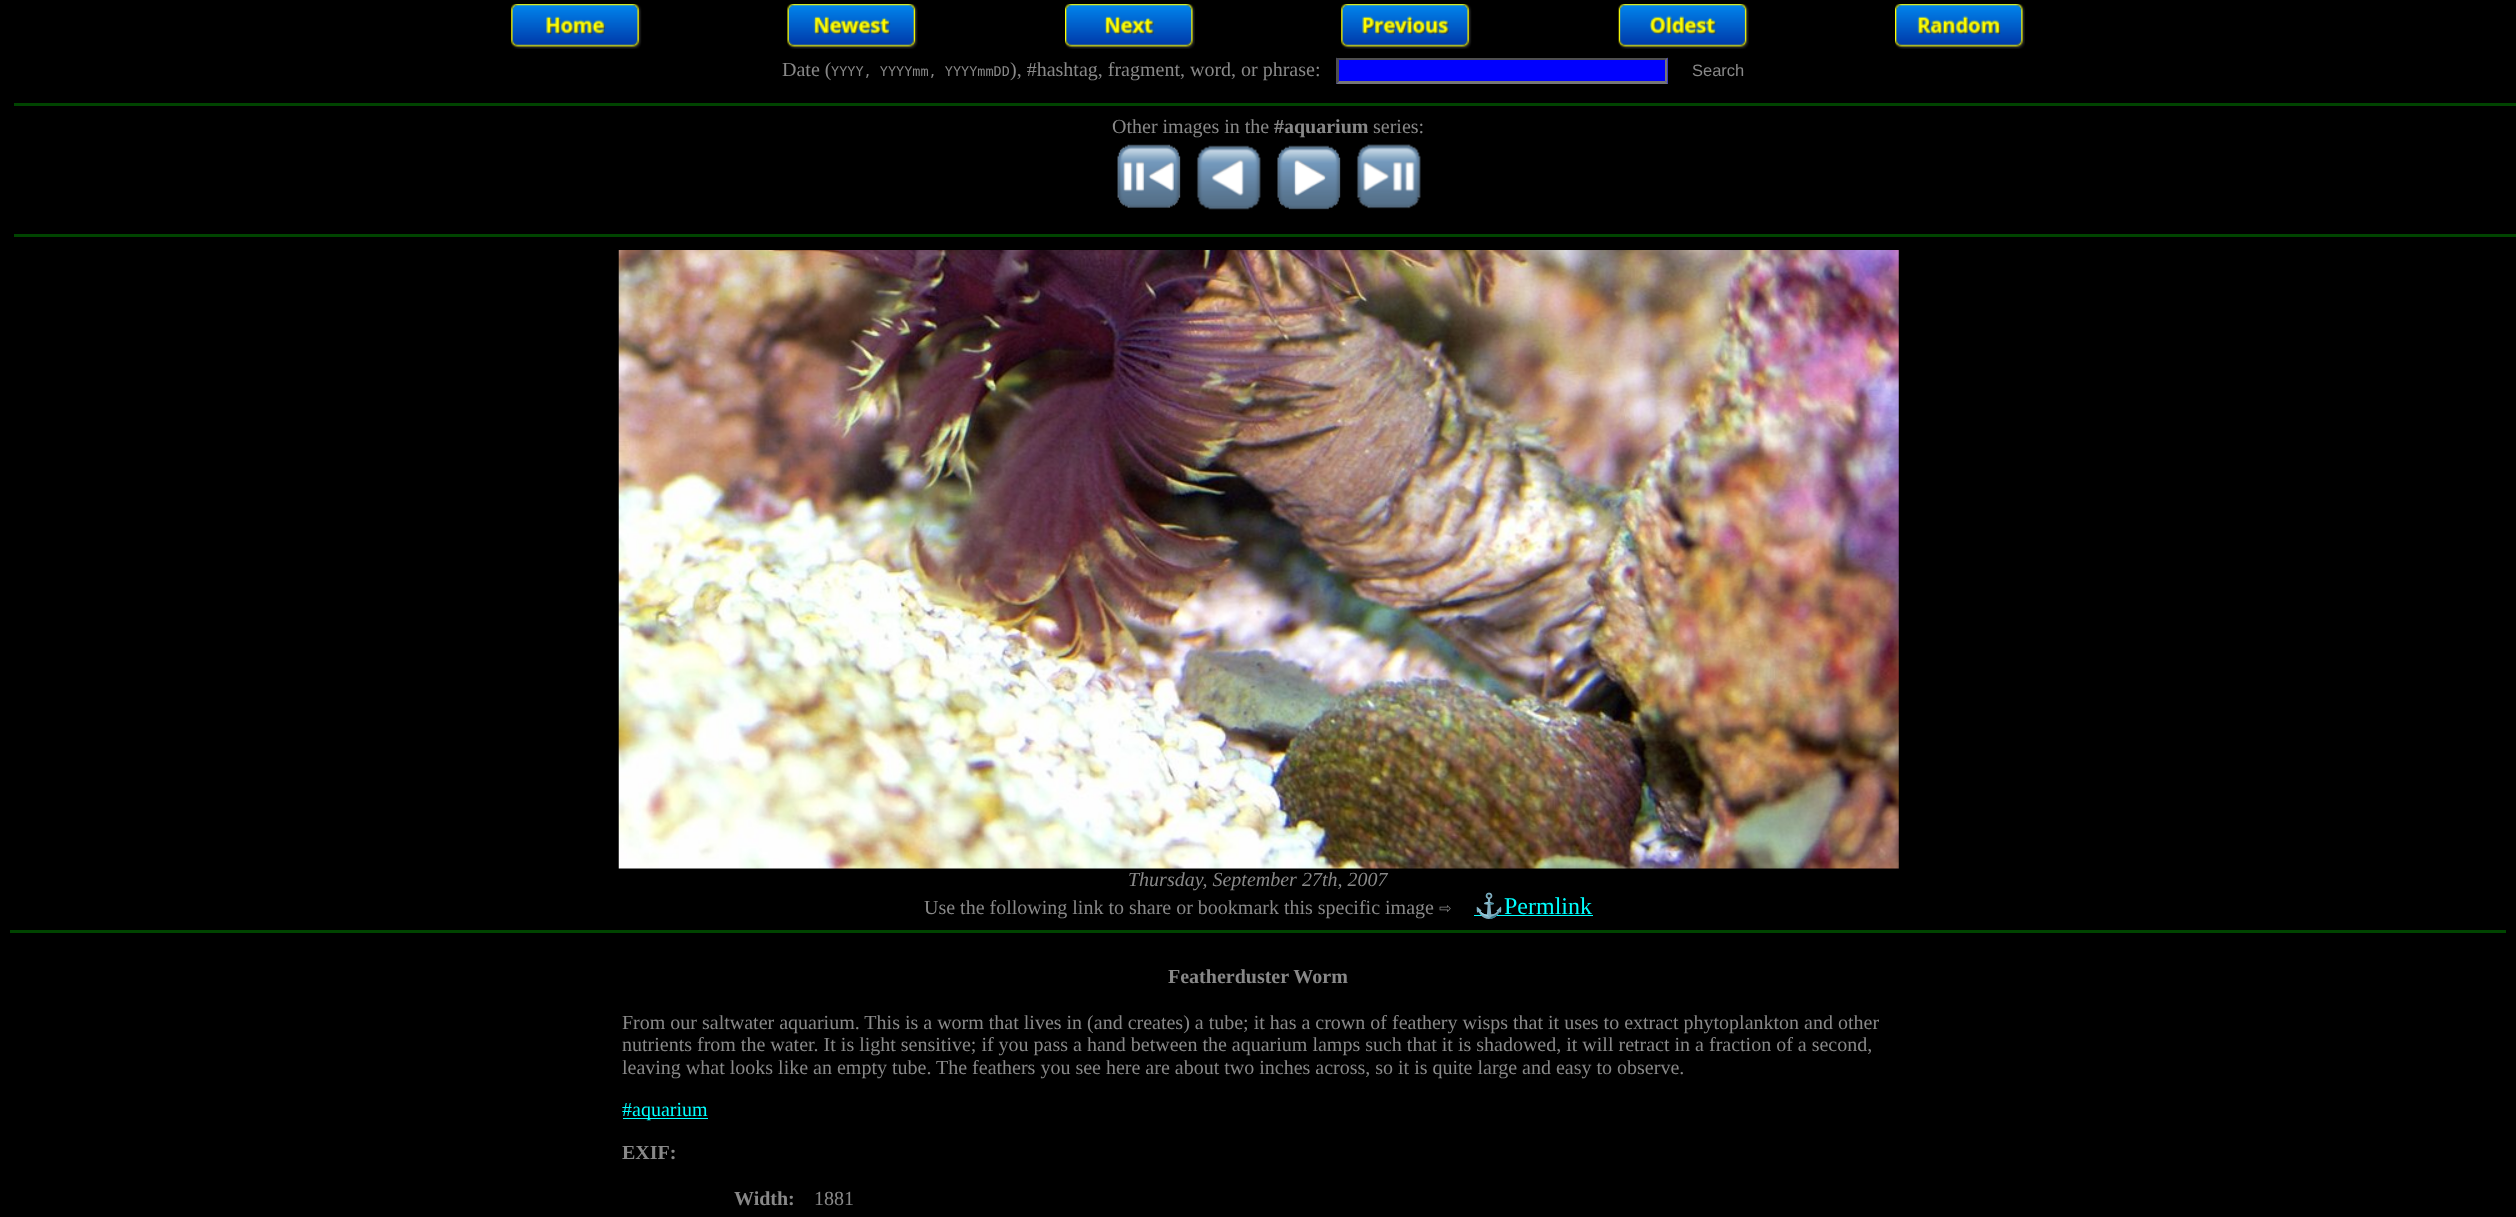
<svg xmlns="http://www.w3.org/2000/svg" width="2516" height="1217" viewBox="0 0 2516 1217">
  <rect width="100%" height="100%" fill="rgb(0,0,0)"/>
  <image x="511" y="4" width="131" height="45" href="pic1.png"/>
  <image x="787" y="4" width="131" height="45" href="pic2.png"/>
  <image x="1065" y="4" width="130" height="45" href="pic3.png"/>
  <image x="1341" y="4" width="131" height="45" href="pic4.png"/>
  <image x="1618" y="4" width="131" height="45" href="pic5.png"/>
  <image x="1895" y="4" width="130" height="45" href="pic6.png"/>
  <text x="782" y="76" font-family="Liberation Serif" font-size="20" fill="rgb(136,136,136)">Date (</text>
  <text x="831" y="76" font-family="DejaVu Sans Mono" font-size="13.5" fill="rgb(136,136,136)">YYYY, YYYYmm, YYYYmmDD</text>
  <text x="1010" y="76" font-family="Liberation Serif" font-size="20" fill="rgb(136,136,136)">), #hashtag, fragment, word, or phrase:</text>
  <rect x="1336" y="58" width="332" height="26" fill="rgb(0,0,255)"/>
  <path d="M1336 58H1668L1665 60H1339Z" fill="rgb(79,79,79)"/>
  <path d="M1667.5 57.5V84L1665 81V60Z" fill="rgb(118,118,118)"/>
  <path d="M1668 84H1336L1339 81H1665Z" fill="rgb(118,118,118)"/>
  <path d="M1336 84V57.5L1339 60V81Z" fill="rgb(79,79,79)"/>
  <text x="1692" y="76" font-family="Liberation Sans" font-size="16.5" fill="rgb(136,136,136)">Search</text>
  <rect x="14" y="103" width="2502" height="3" fill="rgb(0,68,0)"/>
  <text x="1112" y="133" font-family="Liberation Serif" font-size="20" fill="rgb(136,136,136)">Other images in the</text>
  <text x="1274" y="133" font-family="Liberation Serif" font-size="20" font-weight="bold" fill="rgb(136,136,136)">#aquarium</text>
  <text x="1373" y="133" font-family="Liberation Serif" font-size="20" fill="rgb(136,136,136)">series:</text>
  <image x="1117" y="144" width="64" height="64" href="pic7.png"/>
  <image x="1196" y="145" width="65" height="65" href="pic8.png"/>
  <image x="1277" y="145" width="64" height="65" href="pic9.png"/>
  <image x="1356" y="144" width="65" height="65" href="pic10.png"/>
  <rect x="14" y="234" width="2502" height="3" fill="rgb(0,68,0)"/>
  <image x="618" y="250" width="1281" height="619" href="pic11.png"/>
  <text x="1128" y="886" font-family="Liberation Serif" font-size="20" font-style="italic" fill="rgb(136,136,136)">Thursday, September 27th, 2007</text>
  <text x="924" y="914" font-family="Liberation Serif" font-size="20" fill="rgb(136,136,136)">Use the following link to share or bookmark this specific image</text>
  <text x="1439" y="914" font-family="DejaVu Sans Mono" font-size="20" fill="rgb(136,136,136)">⇨</text>
  <rect x="1474" y="915" width="119" height="1" fill="rgb(0,255,255)"/>
  <text x="1474" y="914" font-family="Noto Color Emoji" font-size="24" fill="rgb(0,255,255)">⚓</text>
  <text x="1504" y="914" font-family="Liberation Serif" font-size="24" fill="rgb(0,255,255)">Permlink</text>
  <rect x="10" y="930" width="2496" height="3" fill="rgb(0,68,0)"/>
  <text x="1168" y="983" font-family="Liberation Serif" font-size="20" font-weight="bold" fill="rgb(136,136,136)">Featherduster Worm</text>
  <g font-family="Liberation Serif" font-size="20" fill="rgb(136,136,136)">
    <text>
      <tspan x="622" y="1029">From our saltwater aquarium. This is a worm that lives in (and creates) a tube; it has a crown of feathery wisps that it uses to extract phytoplankton and other</tspan>
      <tspan x="622" y="1051">nutrients from the water. It is light sensitive; if you pass a hand between the aquarium lamps such that it is shadowed, it will retract in a fraction of a second,</tspan>
      <tspan x="622" y="1074">leaving what looks like an empty tube. The feathers you see here are about two inches across, so it is quite large and easy to observe.</tspan>
    </text>
  </g>
  <rect x="623" y="1118" width="85" height="1" fill="rgb(0,255,255)"/>
  <text x="622" y="1116" font-family="Liberation Serif" font-size="20" fill="rgb(0,255,255)">#aquarium</text>
  <g font-family="Liberation Serif" font-size="20" font-weight="bold" fill="rgb(136,136,136)">
    <text x="622" y="1159">EXIF:</text>
    <text x="734" y="1205">Width:</text>
  </g>
  <text x="814" y="1205" font-family="Liberation Serif" font-size="20" fill="rgb(136,136,136)">1881</text>
</svg>
